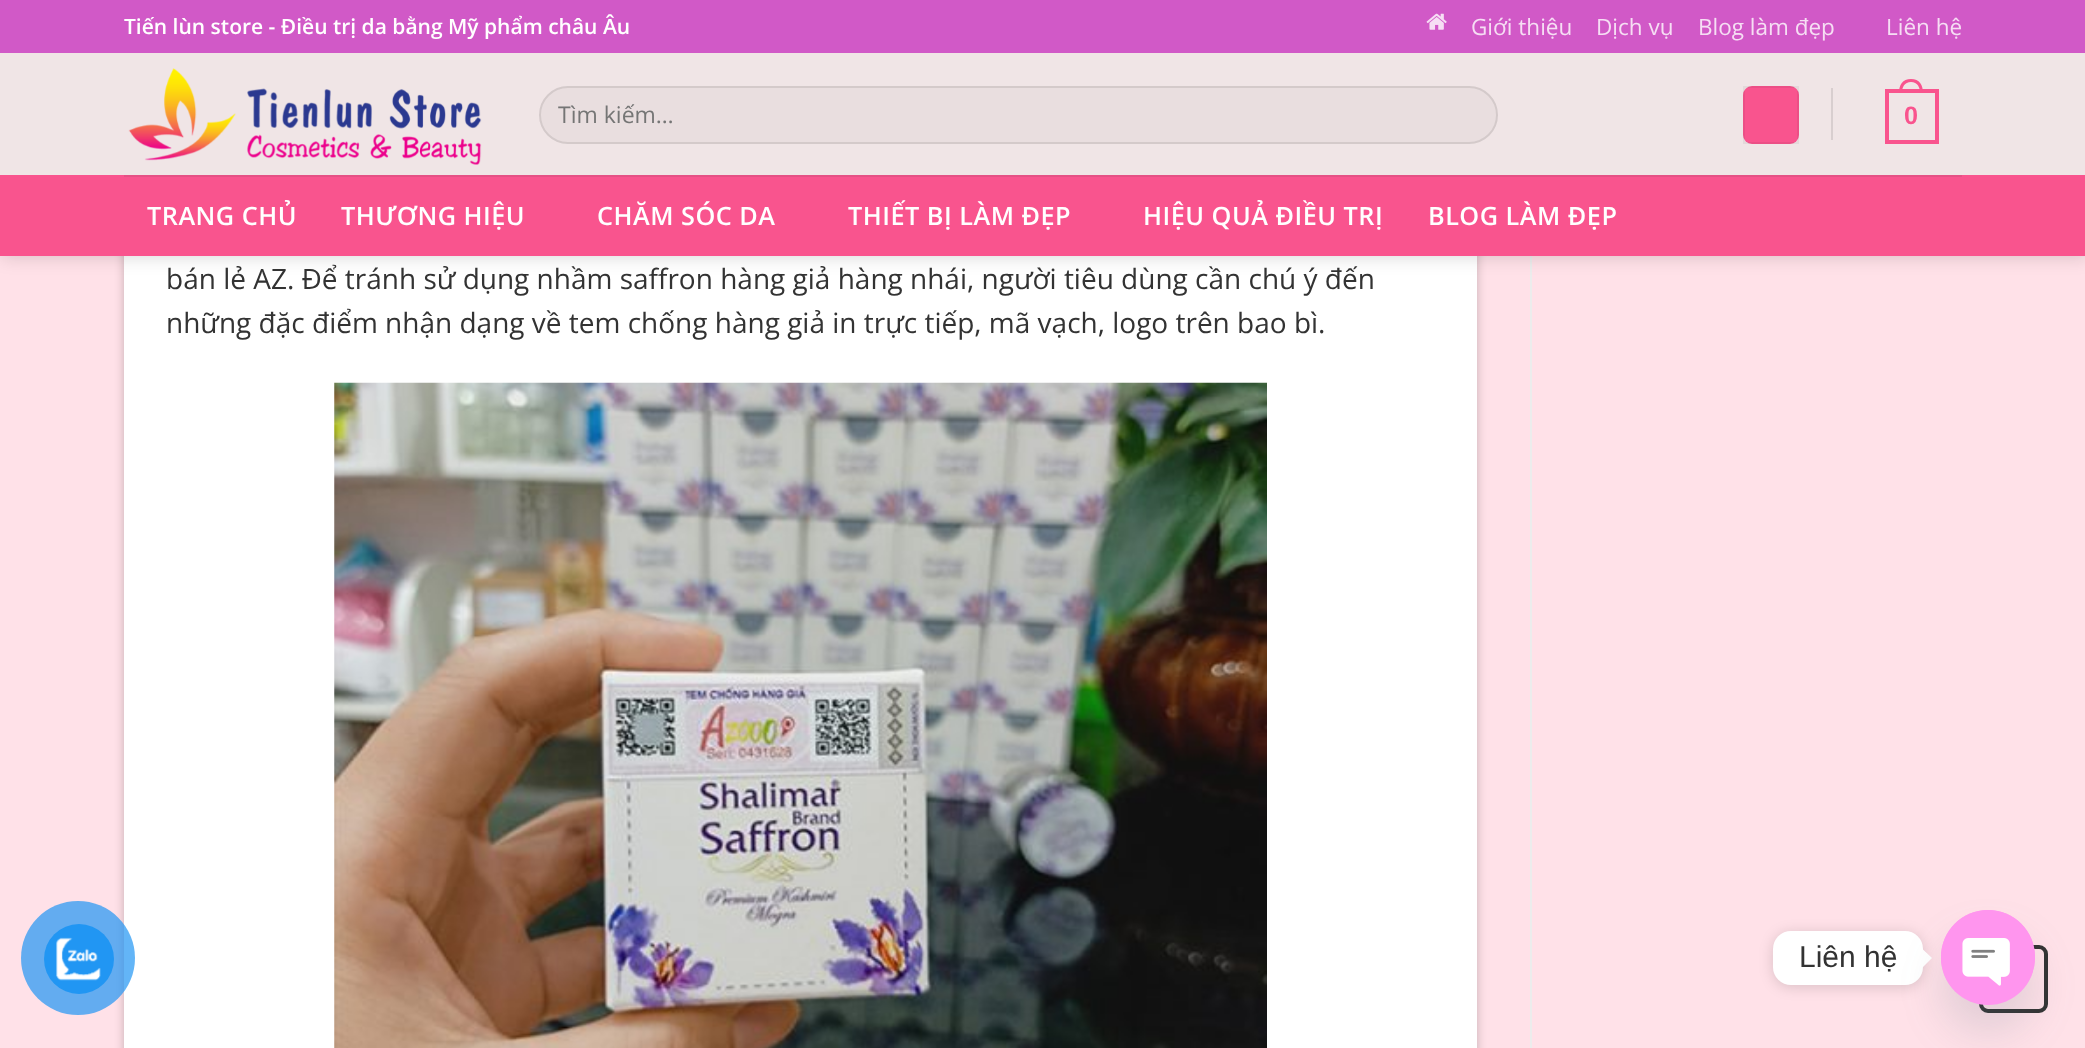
<svg xmlns="http://www.w3.org/2000/svg" width="2085" height="1048" viewBox="0 0 2085 1048">
  <rect width="100%" height="100%" fill="rgb(255,225,232)"/>
  <rect x="124" y="-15" width="1353" height="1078" fill="rgba(0,0,0,0.23)" filter="blur(5px)"/>
  <rect x="124" y="256" width="1353" height="792" fill="rgb(255,255,255)"/>
  <rect x="1530" y="256" width="2" height="792" fill="rgb(236,236,236)"/>
  <rect x="2" y="2" width="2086" height="255" fill="rgba(0,0,0,0.15)" filter="blur(9px)"/>
  <rect x="0" y="0" width="2085" height="53" fill="rgb(209,89,199)"/>
  <text x="124" y="34" font-family="Open Sans" font-size="21" font-weight="600" fill="rgb(255,255,255)">Tiến lùn store - Điều trị da bằng Mỹ phẩm châu Âu</text>
  <image x="1426" y="13" width="21" height="17" href="pic1.png"/>
  <g font-family="Open Sans" font-size="22.5" fill="rgb(246,222,244)">
    <text x="1471" y="35">Giới thiệu</text>
    <text x="1596" y="35">Dịch vụ</text>
    <text x="1698" y="35">Blog làm đẹp</text>
    <text x="1886" y="35">Liên hệ</text>
  </g>
  <rect x="0" y="53" width="2085" height="122" fill="rgb(240,229,230)"/>
  <image x="128" y="68" width="354" height="97" href="pic2.png"/>
  <rect x="539" y="86" width="959" height="58" rx="29" fill="rgb(233,222,223)"/>
  <rect x="540" y="87" width="957" height="56" rx="28" fill="none" stroke="rgba(0,0,0,0.09)" stroke-width="2"/>
  <text x="558" y="123" font-family="Open Sans" font-size="23" fill="rgb(117,117,117)">Tìm kiếm…</text>
  <rect x="1743" y="86" width="56" height="58" rx="9" fill="rgb(249,84,142)"/>
  <rect x="1744" y="87" width="54" height="56" fill="none" stroke="rgba(0,0,0,0.05)" stroke-width="2"/>
  <rect x="1831" y="88" width="2" height="52" fill="rgb(216,206,207)"/>
  <rect x="1887" y="91" width="50" height="51" fill="none" stroke="rgb(249,84,142)" stroke-width="4"/>
  <path d="M1911 79C1919.5 79 1923 85 1923 93H1899C1899 85 1902.5 79 1911 79ZM1911 82C1917.5 82 1920 87 1920 93H1902C1902 87 1904.5 82 1911 82Z" fill="rgb(249,84,142)" fill-rule="evenodd"/>
  <text x="1904" y="124" font-family="Liberation Sans" font-size="25.25" font-weight="bold" letter-spacing="0.5" fill="rgb(249,84,142)">0</text>
  <rect x="0" y="175" width="2085" height="81" fill="rgb(249,84,142)"/>
  <rect x="124" y="175" width="1838" height="2" fill="rgb(229,81,133)"/>
  <g font-family="Open Sans" font-size="25.25" font-weight="600" letter-spacing="0.5" fill="rgb(255,255,255)">
    <text x="147" y="225">TRANG CHỦ</text>
    <text x="341" y="225">THƯƠNG HIỆU</text>
    <text x="597" y="225">CHĂM SÓC DA</text>
    <text x="848" y="225">THIẾT BỊ LÀM ĐẸP</text>
    <text x="1143" y="225">HIỆU QUẢ ĐIỀU TRỊ</text>
    <text x="1428" y="225">BLOG LÀM ĐẸP</text>
  </g>
  <g font-family="Open Sans" font-size="28" fill="rgb(51,51,51)">
    <text>
      <tspan x="166" y="289">bán lẻ AZ. Để tránh sử dụng nhầm saffron hàng giả hàng nhái, người tiêu dùng cần chú ý đến</tspan>
      <tspan x="166" y="333">những đặc điểm nhận dạng về tem chống hàng giả in trực tiếp, mã vạch, logo trên bao bì.</tspan>
    </text>
  </g>
  <image x="334" y="382" width="933" height="666" href="pic3.png"/>
  <rect x="1981" y="947" width="65" height="64" rx="7" fill="none" stroke="rgb(51,51,51)" stroke-width="4"/>
  <circle cx="78" cy="958" r="57" fill="rgba(33,150,243,0.7)"/>
  <circle cx="79" cy="959" r="35" fill="rgb(33,150,243)"/>
  <image x="56" y="937" width="45" height="44" href="pic4.png"/>
  <rect x="1773" y="933" width="150" height="54" rx="18" fill="rgba(0,0,0,0.15)" filter="blur(7px)"/>
  <rect x="1773" y="931" width="150" height="54" rx="18" fill="rgb(255,255,255)"/>
  <text x="1799" y="967" font-family="Liberation Sans" font-size="30" fill="rgb(51,51,51)">Liên hệ</text>
  <path d="M1923 967V949.5L1932 958Z" fill="rgb(255,255,255)"/>
  <rect x="1941" y="938" width="94" height="95" rx="47" fill="rgba(73,104,126,0.16)" filter="blur(21px)"/>
  <rect x="1941" y="910" width="94" height="95" rx="47" fill="rgb(255,149,238)"/>
  <image x="1941" y="910" width="94" height="76" href="pic5.png"/>
</svg>
